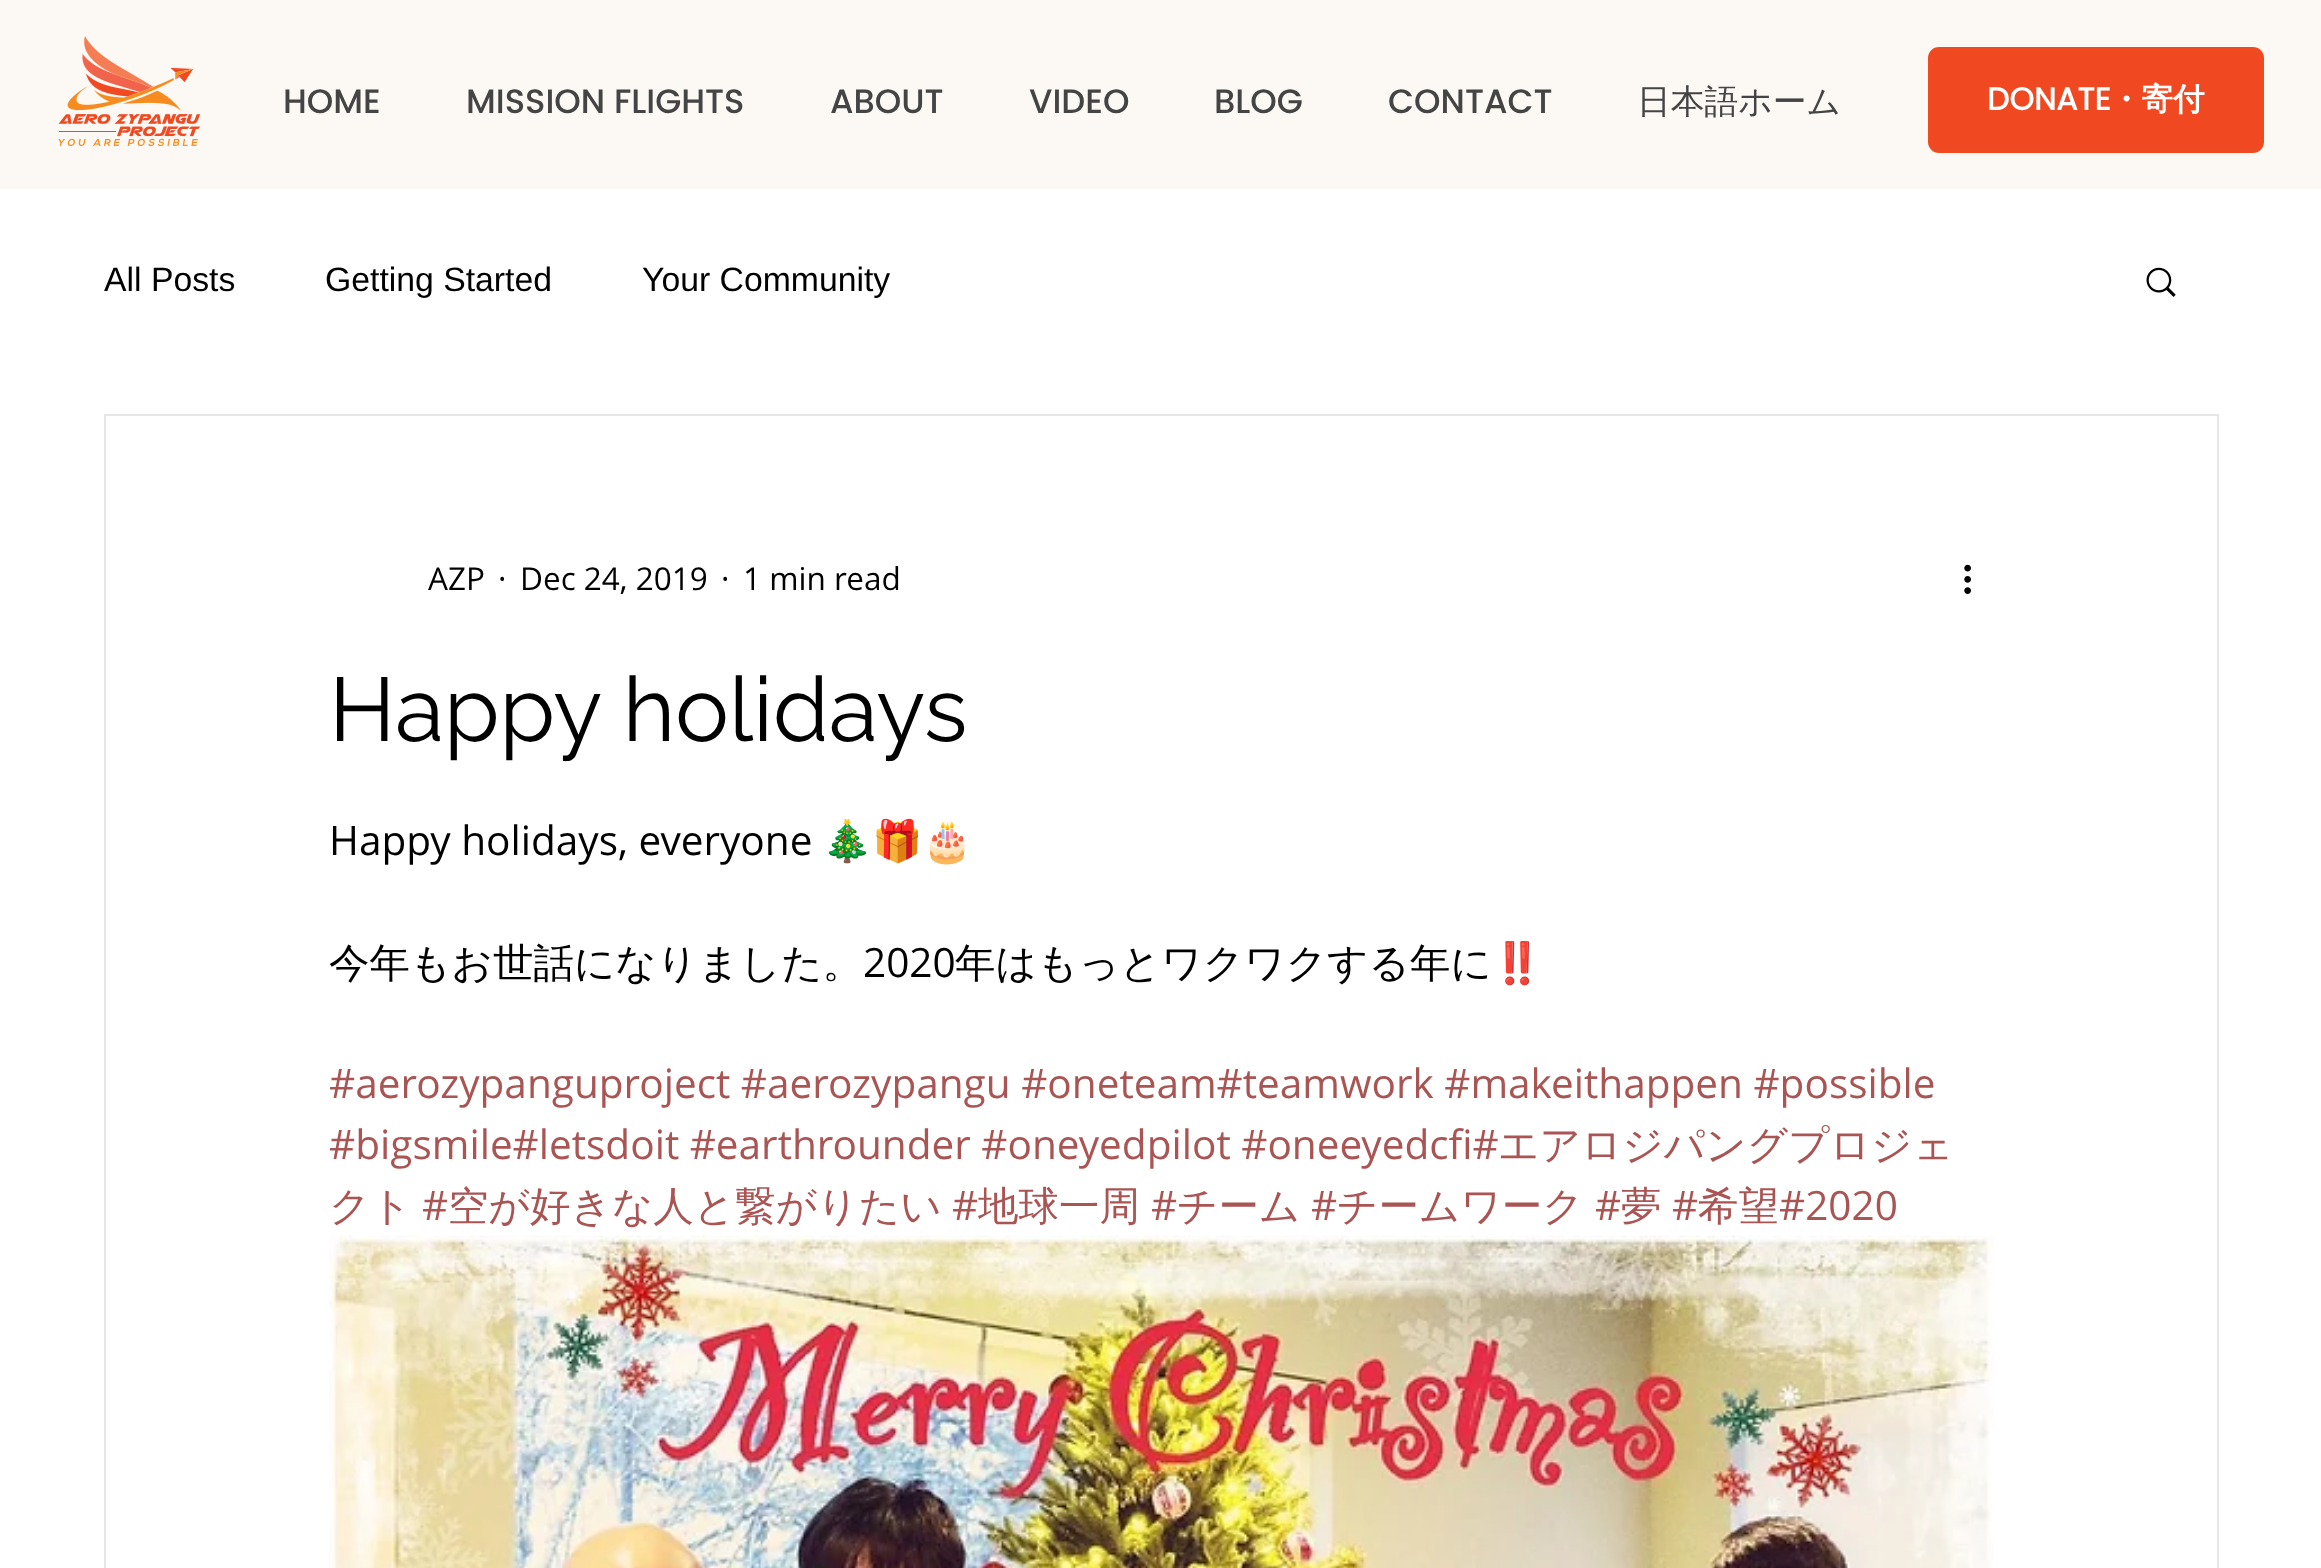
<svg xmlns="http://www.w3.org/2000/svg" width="2321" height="1568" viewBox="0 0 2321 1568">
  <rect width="100%" height="100%" fill="rgb(255,255,255)"/>
  <rect x="0" y="0" width="2321" height="189" fill="rgb(252,249,245)"/>
  <image x="58" y="36" width="143" height="111" href="pic1.png"/>
  <g font-family="Poppins" font-size="33.75" font-weight="500" fill="rgb(68,68,68)">
    <text x="283" y="113">HOME</text>
    <text x="466" y="113">MISSION FLIGHTS</text>
    <text x="830" y="113">ABOUT</text>
    <text x="1029" y="113">VIDEO</text>
    <text x="1214" y="113">BLOG</text>
    <text x="1388" y="113">CONTACT</text>
  </g>
  <text x="1637" y="113" font-family="WenQuanYi Zen Hei" font-size="33.75" font-weight="500" fill="rgb(68,68,68)">日本語ホーム</text>
  <rect x="1930.5" y="49.5" width="331" height="101" rx="8.5" fill="rgb(240,73,34)" stroke="rgb(240,74,35)" stroke-width="5"/>
  <text x="1987" y="110" font-family="Poppins" font-size="31.5" font-weight="bold" fill="rgb(255,255,255)">DONATE</text>
  <text x="2110" y="110" font-family="WenQuanYi Zen Hei" font-size="31.5" font-weight="bold" fill="rgb(255,255,255)">・寄付</text>
  <g font-family="Liberation Sans" font-size="33.75" fill="rgb(0,0,0)">
    <text x="104" y="291">All Posts</text>
    <text x="325" y="291">Getting Started</text>
    <text x="642" y="291">Your Community</text>
  </g>
  <image x="2146" y="267" width="30" height="30" href="pic2.png"/>
  <rect x="105" y="415" width="2113" height="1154" fill="none" stroke="rgb(230,230,230)" stroke-width="2"/>
  <g font-family="Open Sans" font-size="31.5" fill="rgb(0,0,0)">
    <text x="428" y="590">AZP</text>
    <text x="498" y="590">·</text>
    <text x="520" y="590">Dec 24, 2019</text>
    <text x="721" y="590">·</text>
    <text x="743" y="590">1 min read</text>
  </g>
  <image x="1964" y="564" width="7" height="30" href="pic3.png"/>
  <text x="329" y="741" font-family="Raleway" font-size="90" fill="rgb(0,0,0)">Happy holidays</text>
  <text x="329" y="855" font-family="Open Sans" font-size="40.5" fill="rgb(0,0,0)">Happy holidays, everyone</text>
  <text x="822" y="855" font-family="Noto Color Emoji" font-size="40.5" fill="rgb(0,0,0)">🎄🎁🎂</text>
  <text x="329" y="977" font-family="WenQuanYi Zen Hei" font-size="40.5" font-weight="500" fill="rgb(0,0,0)">今年もお世話になりました。</text>
  <text x="863" y="977" font-family="Open Sans" font-size="40.5" fill="rgb(0,0,0)">2020</text>
  <text x="955" y="977" font-family="WenQuanYi Zen Hei" font-size="40.5" font-weight="500" fill="rgb(0,0,0)">年はもっとワクワクする年に</text>
  <text x="1492" y="977" font-family="Noto Color Emoji" font-size="40.5" fill="rgb(0,0,0)">‼️</text>
  <g font-family="Open Sans" font-size="40.5" fill="rgb(168,85,84)">
    <text>
      <tspan x="329" y="1098">#aerozypanguproject #aerozypangu #oneteam#teamwork #makeithappen #possible</tspan>
      <tspan x="329" y="1159">#bigsmile#letsdoit #earthrounder #oneyedpilot #oneeyedcfi#</tspan>
    </text>
  </g>
  <g font-family="WenQuanYi Zen Hei" font-size="40.5" font-weight="500" fill="rgb(168,85,84)">
    <text x="1498" y="1159">エアロジパングプロジェ</text>
    <text x="329" y="1220">クト</text>
  </g>
  <text x="422" y="1220" font-family="Open Sans" font-size="40.5" fill="rgb(168,85,84)">#</text>
  <text x="448" y="1220" font-family="WenQuanYi Zen Hei" font-size="40.5" font-weight="500" fill="rgb(168,85,84)">空が好きな人と繋がりたい</text>
  <text x="952" y="1220" font-family="Open Sans" font-size="40.5" fill="rgb(168,85,84)">#</text>
  <text x="978" y="1220" font-family="WenQuanYi Zen Hei" font-size="40.5" font-weight="500" fill="rgb(168,85,84)">地球一周</text>
  <text x="1151" y="1220" font-family="Open Sans" font-size="40.5" fill="rgb(168,85,84)">#</text>
  <text x="1177" y="1220" font-family="WenQuanYi Zen Hei" font-size="40.5" font-weight="500" fill="rgb(168,85,84)">チーム</text>
  <text x="1311" y="1220" font-family="Open Sans" font-size="40.5" fill="rgb(168,85,84)">#</text>
  <text x="1337" y="1220" font-family="WenQuanYi Zen Hei" font-size="40.5" font-weight="500" fill="rgb(168,85,84)">チームワーク</text>
  <text x="1595" y="1220" font-family="Open Sans" font-size="40.5" fill="rgb(168,85,84)">#</text>
  <text x="1621" y="1220" font-family="WenQuanYi Zen Hei" font-size="40.5" font-weight="500" fill="rgb(168,85,84)">夢</text>
  <text x="1672" y="1220" font-family="Open Sans" font-size="40.5" fill="rgb(168,85,84)">#</text>
  <text x="1698" y="1220" font-family="WenQuanYi Zen Hei" font-size="40.5" font-weight="500" fill="rgb(168,85,84)">希望</text>
  <text x="1779" y="1220" font-family="Open Sans" font-size="40.5" fill="rgb(168,85,84)">#2020</text>
  <image x="329" y="1235" width="1664" height="333" href="pic4.png"/>
</svg>
